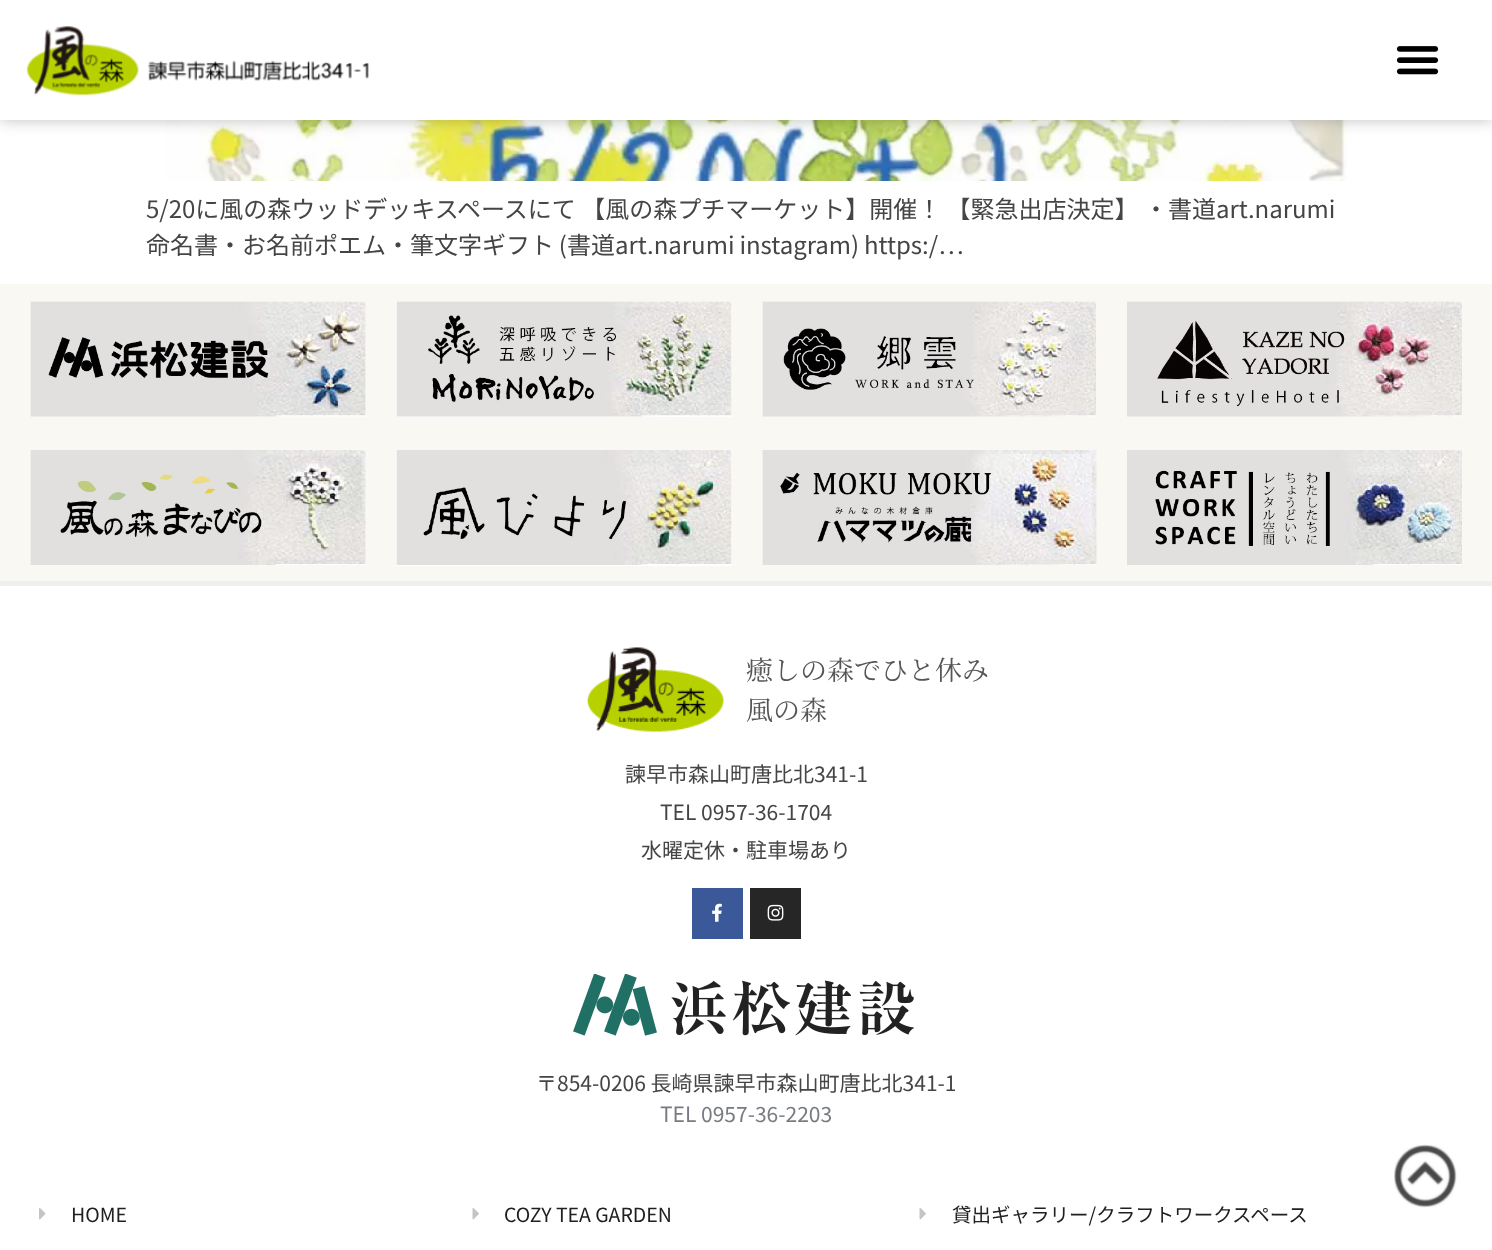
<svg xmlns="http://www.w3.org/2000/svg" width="1492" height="1250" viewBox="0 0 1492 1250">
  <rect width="100%" height="100%" fill="rgb(255,255,255)"/>
  <image x="166" y="120" width="1181" height="61" href="pic3.png"/>
  <rect x="0" y="0" width="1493" height="120" fill="rgba(0,0,0,0.25)" filter="blur(7.5px)"/>
  <rect x="0" y="0" width="1492" height="120" fill="rgb(255,255,255)"/>
  <image x="26" y="26" width="343" height="70" href="pic1.png"/>
  <image x="1396" y="46" width="43" height="29" href="pic2.png"/>
  <g font-family="Noto Sans JP" font-size="24" fill="rgb(69,69,69)">
    <text>
      <tspan x="146" y="218">5/20に風の森ウッドデッキスペースにて 【風の森プチマーケット】開催！ 【緊急出店決定】 ・書道art.narumi</tspan>
      <tspan x="146" y="254" word-spacing="-0.5">命名書・お名前ポエム・筆文字ギフト (書道art.narumi instagram) https:/…</tspan>
    </text>
  </g>
  <rect x="0" y="284" width="1492" height="297" fill="rgb(249,248,243)"/>
  <image x="30" y="301" width="336" height="116" href="pic4.png"/>
  <rect x="396" y="302" width="336" height="115" fill="rgb(255,255,255)"/>
  <image x="396" y="301" width="336" height="116" href="pic5.png"/>
  <image x="762" y="301" width="334" height="116" href="pic6.png"/>
  <image x="1127" y="301" width="335" height="116" href="pic7.png"/>
  <image x="30" y="450" width="336" height="115" href="pic8.png"/>
  <rect x="396" y="450" width="336" height="116" fill="rgb(255,255,255)"/>
  <image x="396" y="450" width="336" height="115" href="pic9.png"/>
  <image x="762" y="450" width="335" height="115" href="pic10.png"/>
  <image x="1127" y="450" width="335" height="115" href="pic11.png"/>
  <rect x="0" y="581" width="1492" height="5" fill="rgb(239,239,239)"/>
  <image x="587" y="647" width="137" height="85" href="pic12.png"/>
  <g font-family="Noto Serif JP" font-size="27" fill="rgb(86,86,86)">
    <text>
      <tspan x="746" y="680">癒しの森でひと休み</tspan>
      <tspan x="746" y="720">風の森</tspan>
    </text>
  </g>
  <g font-family="Noto Sans JP" font-size="21" fill="rgb(69,69,69)">
    <text x="625" y="782">諫早市森山町唐比北341-1</text>
    <text x="660" y="820">TEL 0957-36-1704</text>
    <text x="641" y="858">水曜定休・駐車場あり</text>
  </g>
  <rect x="692" y="888" width="51" height="51" fill="rgb(59,89,152)"/>
  <image x="712" y="903" width="10" height="19" href="pic13.png"/>
  <rect x="750" y="888" width="51" height="51" fill="rgb(38,38,38)"/>
  <image x="767" y="904" width="17" height="17" href="pic14.png"/>
  <image x="573" y="974" width="341" height="62" href="pic15.png"/>
  <text x="536" y="1091" font-family="Noto Sans JP" font-size="21" fill="rgb(69,69,69)">〒854-0206 長崎県諫早市森山町唐比北341-1</text>
  <text x="660" y="1122" font-family="Noto Sans JP" font-size="21" fill="rgb(120,124,129)">TEL 0957-36-2203</text>
  <image x="39" y="1208" width="7" height="12" href="pic16.png"/>
  <text x="71" y="1222" font-family="Noto Sans JP" font-size="19.5" fill="rgb(32,32,32)">HOME</text>
  <image x="472" y="1208" width="7" height="12" href="pic17.png"/>
  <text x="504" y="1222" font-family="Noto Sans JP" font-size="19.5" fill="rgb(32,32,32)">COZY TEA GARDEN</text>
  <image x="919" y="1208" width="7" height="12" href="pic17.png"/>
  <text x="952" y="1222" font-family="Noto Sans JP" font-size="19.5" fill="rgb(32,32,32)">貸出ギャラリー/クラフトワークスペース</text>
  <image x="1394" y="1144" width="63" height="64" href="pic18.png"/>
</svg>
